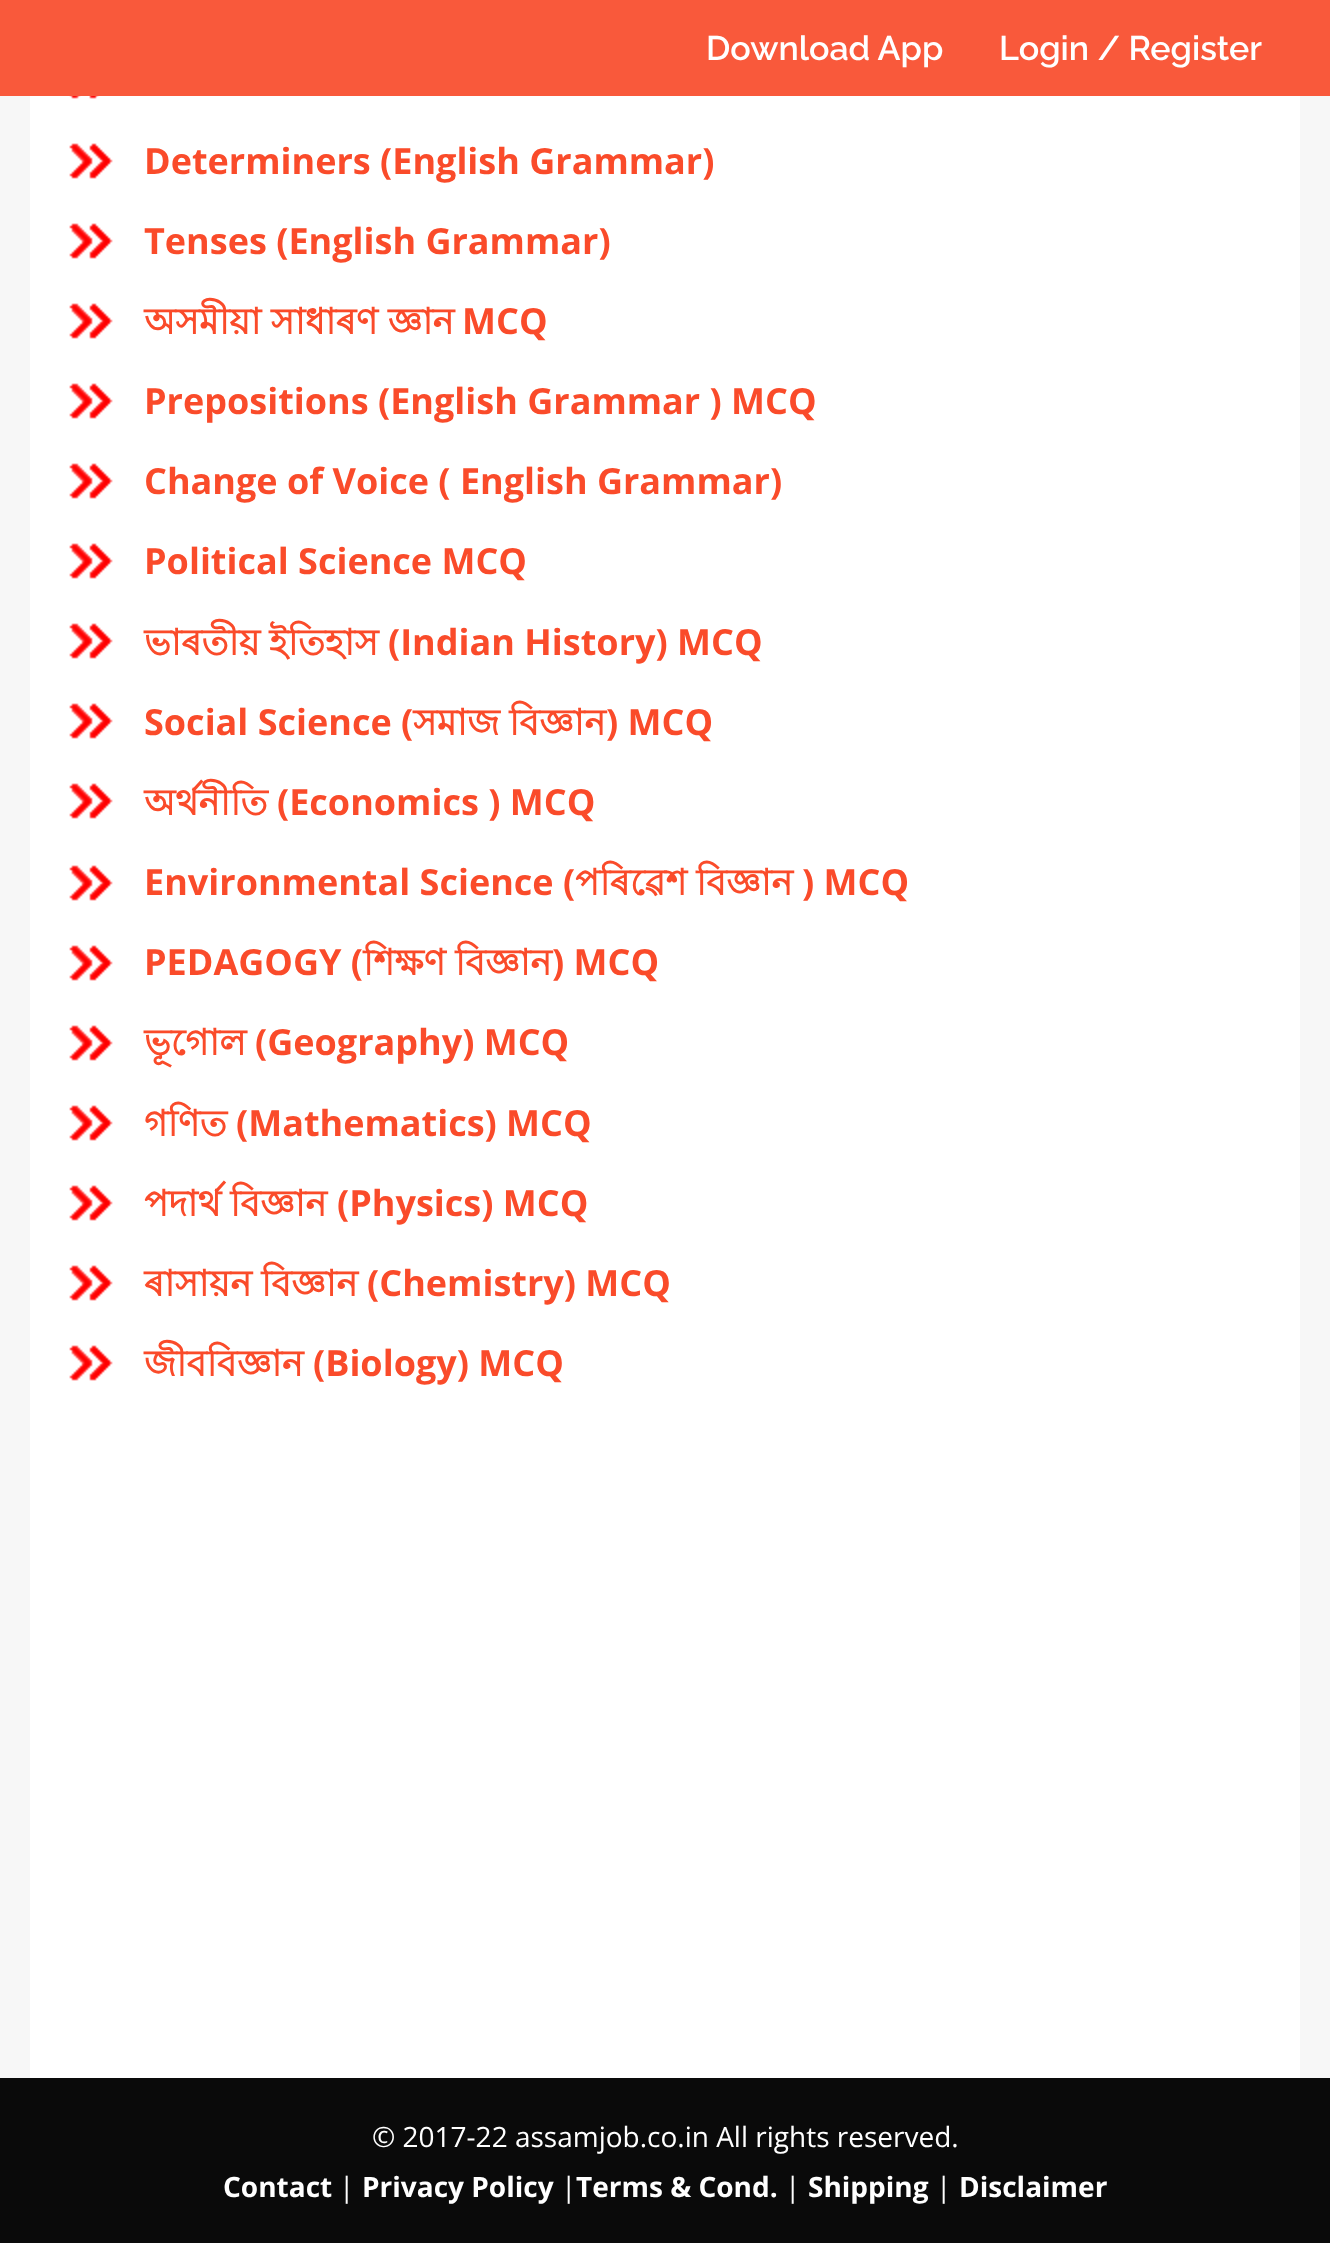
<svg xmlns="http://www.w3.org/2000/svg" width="1330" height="2243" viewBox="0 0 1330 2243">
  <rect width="100%" height="100%" fill="rgb(247,247,247)"/>
  <rect x="0" y="0" width="1330" height="96" fill="rgb(249,89,59)"/>
  <g font-family="Raleway" font-size="34" font-weight="600" fill="rgb(255,255,255)">
    <text x="706" y="60">Download App</text>
    <text x="999" y="60">Login / Register</text>
  </g>
  <rect x="30" y="96" width="1270" height="1982" fill="rgb(255,255,255)"/>
  <image x="69" y="96" width="30" height="3" href="pic1.png"/>
  <image x="69" y="143" width="44" height="36" href="pic2.png"/>
  <text x="144" y="174" font-family="Open Sans" font-size="36" font-weight="bold" fill="rgb(250,75,42)">Determiners (English Grammar)</text>
  <image x="69" y="223" width="44" height="36" href="pic2.png"/>
  <text x="144" y="254" font-family="Open Sans" font-size="36" font-weight="bold" fill="rgb(250,75,42)">Tenses (English Grammar)</text>
  <image x="69" y="303" width="44" height="36" href="pic2.png"/>
  <text x="144" y="334" font-family="Lohit Bengali" font-size="36" font-weight="bold" fill="rgb(250,75,42)">অসমীয়া সাধাৰণ জ্ঞান</text>
  <text x="462" y="334" font-family="Open Sans" font-size="36" font-weight="bold" fill="rgb(250,75,42)">MCQ</text>
  <image x="69" y="383" width="44" height="36" href="pic2.png"/>
  <text x="144" y="414" font-family="Open Sans" font-size="36" font-weight="bold" fill="rgb(250,75,42)">Prepositions (English Grammar ) MCQ</text>
  <image x="69" y="463" width="44" height="36" href="pic2.png"/>
  <text x="144" y="494" font-family="Open Sans" font-size="36" font-weight="bold" fill="rgb(250,75,42)">Change of Voice ( English Grammar)</text>
  <image x="69" y="543" width="44" height="36" href="pic2.png"/>
  <text x="144" y="574" font-family="Open Sans" font-size="36" font-weight="bold" fill="rgb(250,75,42)">Political Science MCQ</text>
  <image x="69" y="623" width="44" height="36" href="pic2.png"/>
  <g font-family="Lohit Bengali" font-size="36" font-weight="bold" fill="rgb(250,75,42)">
    <text x="144" y="655">ভাৰতীয়</text>
    <text x="269" y="655">ইতিহাস</text>
  </g>
  <text x="388" y="655" font-family="Open Sans" font-size="36" font-weight="bold" fill="rgb(250,75,42)">(Indian History) MCQ</text>
  <image x="69" y="703" width="44" height="36" href="pic2.png"/>
  <text x="144" y="735" font-family="Open Sans" font-size="36" font-weight="bold" fill="rgb(250,75,42)">Social Science (</text>
  <g font-family="Lohit Bengali" font-size="36" font-weight="bold" fill="rgb(250,75,42)">
    <text x="413" y="735">সমাজ</text>
    <text x="509" y="735">বিজ্ঞান</text>
  </g>
  <text x="606" y="735" font-family="Open Sans" font-size="36" font-weight="bold" fill="rgb(250,75,42)">) MCQ</text>
  <image x="69" y="783" width="44" height="36" href="pic2.png"/>
  <text x="144" y="815" font-family="Lohit Bengali" font-size="36" font-weight="bold" fill="rgb(250,75,42)">অর্থনীতি</text>
  <text x="277" y="815" font-family="Open Sans" font-size="36" font-weight="bold" fill="rgb(250,75,42)">(Economics ) MCQ</text>
  <image x="69" y="865" width="44" height="36" href="pic2.png"/>
  <text x="144" y="895" font-family="Open Sans" font-size="36" font-weight="bold" fill="rgb(250,75,42)">Environmental Science (</text>
  <g font-family="Lohit Bengali" font-size="36" font-weight="bold" fill="rgb(250,75,42)">
    <text x="575" y="895">পৰিৱেশ</text>
    <text x="696" y="895">বিজ্ঞান</text>
  </g>
  <text x="802" y="895" font-family="Open Sans" font-size="36" font-weight="bold" fill="rgb(250,75,42)">) MCQ</text>
  <image x="69" y="945" width="44" height="36" href="pic2.png"/>
  <text x="144" y="975" font-family="Open Sans" font-size="36" font-weight="bold" fill="rgb(250,75,42)">PEDAGOGY (</text>
  <g font-family="Lohit Bengali" font-size="36" font-weight="bold" fill="rgb(250,75,42)">
    <text x="363" y="975">শিক্ষণ</text>
    <text x="455" y="975">বিজ্ঞান</text>
  </g>
  <text x="552" y="975" font-family="Open Sans" font-size="36" font-weight="bold" fill="rgb(250,75,42)">) MCQ</text>
  <image x="69" y="1025" width="44" height="36" href="pic2.png"/>
  <text x="144" y="1055" font-family="Lohit Bengali" font-size="36" font-weight="bold" fill="rgb(250,75,42)">ভূগোল</text>
  <text x="255" y="1055" font-family="Open Sans" font-size="36" font-weight="bold" fill="rgb(250,75,42)">(Geography) MCQ</text>
  <image x="69" y="1105" width="44" height="36" href="pic2.png"/>
  <text x="144" y="1136" font-family="Lohit Bengali" font-size="36" font-weight="bold" fill="rgb(250,75,42)">গণিত</text>
  <text x="236" y="1136" font-family="Open Sans" font-size="36" font-weight="bold" fill="rgb(250,75,42)">(Mathematics) MCQ</text>
  <image x="69" y="1185" width="44" height="36" href="pic2.png"/>
  <g font-family="Lohit Bengali" font-size="36" font-weight="bold" fill="rgb(250,75,42)">
    <text x="144" y="1216">পদার্থ</text>
    <text x="230" y="1216">বিজ্ঞান</text>
  </g>
  <text x="337" y="1216" font-family="Open Sans" font-size="36" font-weight="bold" fill="rgb(250,75,42)">(Physics) MCQ</text>
  <image x="69" y="1265" width="44" height="36" href="pic2.png"/>
  <g font-family="Lohit Bengali" font-size="36" font-weight="bold" fill="rgb(250,75,42)">
    <text x="144" y="1296">ৰাসায়ন</text>
    <text x="261" y="1296">বিজ্ঞান</text>
  </g>
  <text x="367" y="1296" font-family="Open Sans" font-size="36" font-weight="bold" fill="rgb(250,75,42)">(Chemistry) MCQ</text>
  <image x="69" y="1345" width="44" height="36" href="pic2.png"/>
  <text x="144" y="1376" font-family="Lohit Bengali" font-size="36" font-weight="bold" fill="rgb(250,75,42)">জীববিজ্ঞান</text>
  <text x="313" y="1376" font-family="Open Sans" font-size="36" font-weight="bold" fill="rgb(250,75,42)">(Biology) MCQ</text>
  <rect x="0" y="2078" width="1330" height="165" fill="rgb(10,10,10)"/>
  <text x="372" y="2147" font-family="Open Sans" font-size="28" fill="rgb(255,255,255)">© 2017-22 assamjob.co.in All rights reserved.</text>
  <text x="223" y="2197" font-family="Open Sans" font-size="28" font-weight="bold" fill="rgb(255,255,255)">Contact</text>
  <text x="339" y="2197" font-family="Open Sans" font-size="28" fill="rgb(255,255,255)">|</text>
  <text x="362" y="2197" font-family="Open Sans" font-size="28" font-weight="bold" fill="rgb(255,255,255)">Privacy Policy</text>
  <text x="561" y="2197" font-family="Open Sans" font-size="28" fill="rgb(255,255,255)">|</text>
  <text x="576" y="2197" font-family="Open Sans" font-size="28" font-weight="bold" fill="rgb(255,255,255)">Terms &amp; Cond.</text>
  <text x="785" y="2197" font-family="Open Sans" font-size="28" fill="rgb(255,255,255)">|</text>
  <text x="808" y="2197" font-family="Open Sans" font-size="28" font-weight="bold" fill="rgb(255,255,255)">Shipping</text>
  <text x="936" y="2197" font-family="Open Sans" font-size="28" fill="rgb(255,255,255)">|</text>
  <text x="959" y="2197" font-family="Open Sans" font-size="28" font-weight="bold" fill="rgb(255,255,255)">Disclaimer</text>
</svg>
